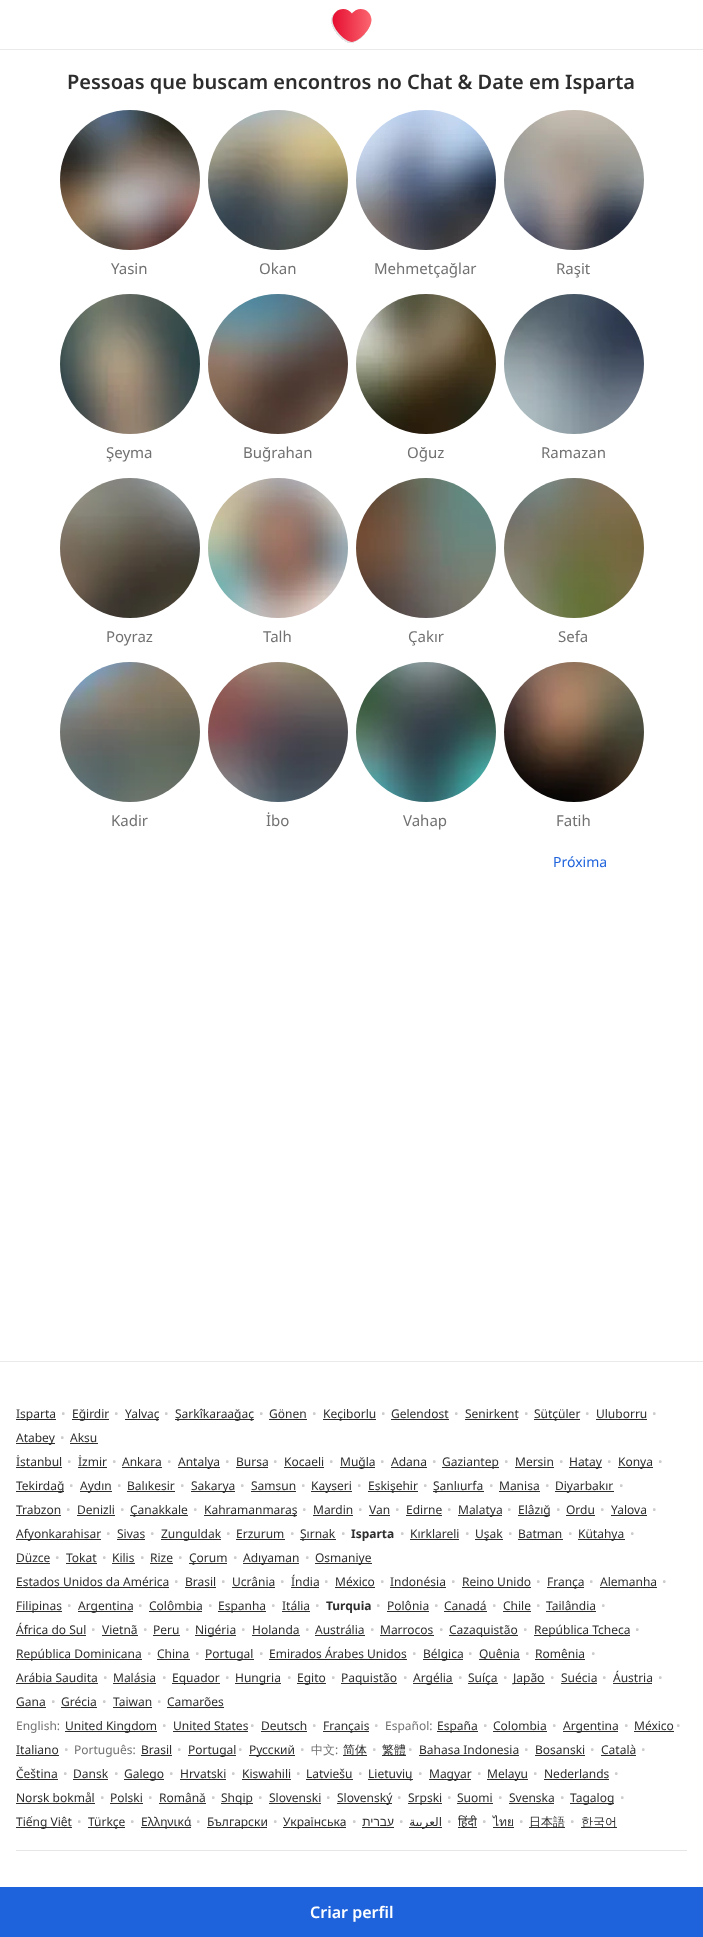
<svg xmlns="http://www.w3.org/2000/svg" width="703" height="1937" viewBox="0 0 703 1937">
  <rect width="100%" height="100%" fill="rgb(255,255,255)"/>
  <rect x="0" y="49" width="703" height="1" fill="rgb(234,234,234)"/>
  <image x="331" y="9" width="41" height="34" href="pic1.png"/>
  <text x="67" y="89" font-family="Noto Sans" font-size="20" font-weight="600" fill="rgb(45,45,45)">Pessoas que buscam encontros no Chat &amp; Date em Isparta</text>
  <image x="60" y="110" width="140" height="140" href="pic2.png"/>
  <text x="111" y="274" font-family="Noto Sans" font-size="15" fill="rgb(113,113,113)">Yasin</text>
  <image x="208" y="110" width="140" height="140" href="pic3.png"/>
  <text x="259" y="274" font-family="Noto Sans" font-size="15" fill="rgb(113,113,113)">Okan</text>
  <image x="356" y="110" width="140" height="140" href="pic4.png"/>
  <text x="374" y="274" font-family="Noto Sans" font-size="15" fill="rgb(113,113,113)">Mehmetçağlar</text>
  <image x="504" y="110" width="140" height="140" href="pic5.png"/>
  <text x="556" y="274" font-family="Noto Sans" font-size="15" fill="rgb(113,113,113)">Raşit</text>
  <image x="60" y="294" width="140" height="140" href="pic6.png"/>
  <text x="106" y="458" font-family="Noto Sans" font-size="15" fill="rgb(113,113,113)">Şeyma</text>
  <image x="208" y="294" width="140" height="140" href="pic7.png"/>
  <text x="243" y="458" font-family="Noto Sans" font-size="15" fill="rgb(113,113,113)">Buğrahan</text>
  <image x="356" y="294" width="140" height="140" href="pic8.png"/>
  <text x="407" y="458" font-family="Noto Sans" font-size="15" fill="rgb(113,113,113)">Oğuz</text>
  <image x="504" y="294" width="140" height="140" href="pic9.png"/>
  <text x="541" y="458" font-family="Noto Sans" font-size="15" fill="rgb(113,113,113)">Ramazan</text>
  <image x="60" y="478" width="140" height="140" href="pic10.png"/>
  <text x="106" y="642" font-family="Noto Sans" font-size="15" fill="rgb(113,113,113)">Poyraz</text>
  <image x="208" y="478" width="140" height="140" href="pic11.png"/>
  <text x="263" y="642" font-family="Noto Sans" font-size="15" fill="rgb(113,113,113)">Talh</text>
  <image x="356" y="478" width="140" height="140" href="pic12.png"/>
  <text x="408" y="642" font-family="Noto Sans" font-size="15" fill="rgb(113,113,113)">Çakır</text>
  <image x="504" y="478" width="140" height="140" href="pic13.png"/>
  <text x="558" y="642" font-family="Noto Sans" font-size="15" fill="rgb(113,113,113)">Sefa</text>
  <image x="60" y="662" width="140" height="140" href="pic14.png"/>
  <text x="111" y="826" font-family="Noto Sans" font-size="15" fill="rgb(113,113,113)">Kadir</text>
  <image x="208" y="662" width="140" height="140" href="pic15.png"/>
  <text x="266" y="826" font-family="Noto Sans" font-size="15" fill="rgb(113,113,113)">İbo</text>
  <image x="356" y="662" width="140" height="140" href="pic16.png"/>
  <text x="403" y="826" font-family="Noto Sans" font-size="15" fill="rgb(113,113,113)">Vahap</text>
  <image x="504" y="662" width="140" height="140" href="pic17.png"/>
  <text x="556" y="826" font-family="Noto Sans" font-size="15" fill="rgb(113,113,113)">Fatih</text>
  <text x="553" y="867" font-family="Noto Sans" font-size="14" fill="rgb(31,99,220)">Próxima</text>
  <rect x="0" y="1361" width="703" height="1" fill="rgb(234,234,234)"/>
  <rect x="16" y="1419" width="40" height="1" fill="rgb(45,45,45)"/>
  <text x="16" y="1418" font-family="Noto Sans" font-size="12" fill="rgb(45,45,45)">Isparta</text>
  <text x="61" y="1418" font-family="Noto Sans" font-size="12" fill="rgb(204,204,204)">•</text>
  <rect x="72" y="1419" width="37" height="1" fill="rgb(45,45,45)"/>
  <text x="72" y="1418" font-family="Noto Sans" font-size="12" fill="rgb(45,45,45)">Eğirdir</text>
  <text x="114" y="1418" font-family="Noto Sans" font-size="12" fill="rgb(204,204,204)">•</text>
  <rect x="125" y="1419" width="34" height="1" fill="rgb(45,45,45)"/>
  <text x="125" y="1418" font-family="Noto Sans" font-size="12" fill="rgb(45,45,45)">Yalvaç</text>
  <text x="164" y="1418" font-family="Noto Sans" font-size="12" fill="rgb(204,204,204)">•</text>
  <rect x="175" y="1419" width="79" height="1" fill="rgb(45,45,45)"/>
  <text x="175" y="1418" font-family="Noto Sans" font-size="12" fill="rgb(45,45,45)">Şarkîkaraağaç</text>
  <text x="259" y="1418" font-family="Noto Sans" font-size="12" fill="rgb(204,204,204)">•</text>
  <text x="269" y="1418" font-family="Noto Sans" font-size="12" fill="rgb(45,45,45)">Gönen</text>
  <rect x="269" y="1419" width="38" height="1" fill="rgb(45,45,45)"/>
  <text x="312" y="1418" font-family="Noto Sans" font-size="12" fill="rgb(204,204,204)">•</text>
  <rect x="323" y="1419" width="53" height="1" fill="rgb(45,45,45)"/>
  <text x="323" y="1418" font-family="Noto Sans" font-size="12" fill="rgb(45,45,45)">Keçiborlu</text>
  <text x="381" y="1418" font-family="Noto Sans" font-size="12" fill="rgb(204,204,204)">•</text>
  <text x="391" y="1418" font-family="Noto Sans" font-size="12" fill="rgb(45,45,45)">Gelendost</text>
  <rect x="391" y="1419" width="58" height="1" fill="rgb(45,45,45)"/>
  <text x="454" y="1418" font-family="Noto Sans" font-size="12" fill="rgb(204,204,204)">•</text>
  <text x="465" y="1418" font-family="Noto Sans" font-size="12" fill="rgb(45,45,45)">Senirkent</text>
  <rect x="465" y="1419" width="53" height="1" fill="rgb(45,45,45)"/>
  <text x="524" y="1418" font-family="Noto Sans" font-size="12" fill="rgb(204,204,204)">•</text>
  <rect x="534" y="1419" width="46" height="1" fill="rgb(45,45,45)"/>
  <text x="534" y="1418" font-family="Noto Sans" font-size="12" fill="rgb(45,45,45)">Sütçüler</text>
  <text x="585" y="1418" font-family="Noto Sans" font-size="12" fill="rgb(204,204,204)">•</text>
  <text x="596" y="1418" font-family="Noto Sans" font-size="12" fill="rgb(45,45,45)">Uluborru</text>
  <rect x="596" y="1419" width="51" height="1" fill="rgb(45,45,45)"/>
  <text x="652" y="1418" font-family="Noto Sans" font-size="12" fill="rgb(204,204,204)">•</text>
  <rect x="16" y="1443" width="39" height="1" fill="rgb(45,45,45)"/>
  <text x="16" y="1442" font-family="Noto Sans" font-size="12" fill="rgb(45,45,45)">Atabey</text>
  <text x="60" y="1442" font-family="Noto Sans" font-size="12" fill="rgb(204,204,204)">•</text>
  <text x="70" y="1442" font-family="Noto Sans" font-size="12" fill="rgb(45,45,45)">Aksu</text>
  <rect x="70" y="1443" width="28" height="1" fill="rgb(45,45,45)"/>
  <text x="16" y="1466" font-family="Noto Sans" font-size="12" fill="rgb(45,45,45)">İstanbul</text>
  <rect x="16" y="1467" width="46" height="1" fill="rgb(45,45,45)"/>
  <text x="67" y="1466" font-family="Noto Sans" font-size="12" fill="rgb(204,204,204)">•</text>
  <text x="78" y="1466" font-family="Noto Sans" font-size="12" fill="rgb(45,45,45)">İzmir</text>
  <rect x="78" y="1467" width="29" height="1" fill="rgb(45,45,45)"/>
  <text x="112" y="1466" font-family="Noto Sans" font-size="12" fill="rgb(204,204,204)">•</text>
  <text x="122" y="1466" font-family="Noto Sans" font-size="12" fill="rgb(45,45,45)">Ankara</text>
  <rect x="122" y="1467" width="40" height="1" fill="rgb(45,45,45)"/>
  <text x="167" y="1466" font-family="Noto Sans" font-size="12" fill="rgb(204,204,204)">•</text>
  <rect x="178" y="1467" width="42" height="1" fill="rgb(45,45,45)"/>
  <text x="178" y="1466" font-family="Noto Sans" font-size="12" fill="rgb(45,45,45)">Antalya</text>
  <text x="225" y="1466" font-family="Noto Sans" font-size="12" fill="rgb(204,204,204)">•</text>
  <text x="236" y="1466" font-family="Noto Sans" font-size="12" fill="rgb(45,45,45)">Bursa</text>
  <rect x="236" y="1467" width="32" height="1" fill="rgb(45,45,45)"/>
  <text x="273" y="1466" font-family="Noto Sans" font-size="12" fill="rgb(204,204,204)">•</text>
  <text x="284" y="1466" font-family="Noto Sans" font-size="12" fill="rgb(45,45,45)">Kocaeli</text>
  <rect x="284" y="1467" width="40" height="1" fill="rgb(45,45,45)"/>
  <text x="329" y="1466" font-family="Noto Sans" font-size="12" fill="rgb(204,204,204)">•</text>
  <rect x="340" y="1467" width="35" height="1" fill="rgb(45,45,45)"/>
  <text x="340" y="1466" font-family="Noto Sans" font-size="12" fill="rgb(45,45,45)">Muğla</text>
  <text x="380" y="1466" font-family="Noto Sans" font-size="12" fill="rgb(204,204,204)">•</text>
  <text x="391" y="1466" font-family="Noto Sans" font-size="12" fill="rgb(45,45,45)">Adana</text>
  <rect x="391" y="1467" width="36" height="1" fill="rgb(45,45,45)"/>
  <text x="432" y="1466" font-family="Noto Sans" font-size="12" fill="rgb(204,204,204)">•</text>
  <rect x="442" y="1467" width="57" height="1" fill="rgb(45,45,45)"/>
  <text x="442" y="1466" font-family="Noto Sans" font-size="12" fill="rgb(45,45,45)">Gaziantep</text>
  <text x="504" y="1466" font-family="Noto Sans" font-size="12" fill="rgb(204,204,204)">•</text>
  <text x="515" y="1466" font-family="Noto Sans" font-size="12" fill="rgb(45,45,45)">Mersin</text>
  <rect x="515" y="1467" width="39" height="1" fill="rgb(45,45,45)"/>
  <text x="559" y="1466" font-family="Noto Sans" font-size="12" fill="rgb(204,204,204)">•</text>
  <rect x="569" y="1467" width="33" height="1" fill="rgb(45,45,45)"/>
  <text x="569" y="1466" font-family="Noto Sans" font-size="12" fill="rgb(45,45,45)">Hatay</text>
  <text x="607" y="1466" font-family="Noto Sans" font-size="12" fill="rgb(204,204,204)">•</text>
  <rect x="618" y="1467" width="35" height="1" fill="rgb(45,45,45)"/>
  <text x="618" y="1466" font-family="Noto Sans" font-size="12" fill="rgb(45,45,45)">Konya</text>
  <text x="658" y="1466" font-family="Noto Sans" font-size="12" fill="rgb(204,204,204)">•</text>
  <rect x="16" y="1491" width="48" height="1" fill="rgb(45,45,45)"/>
  <text x="16" y="1490" font-family="Noto Sans" font-size="12" fill="rgb(45,45,45)">Tekirdağ</text>
  <text x="69" y="1490" font-family="Noto Sans" font-size="12" fill="rgb(204,204,204)">•</text>
  <rect x="80" y="1491" width="32" height="1" fill="rgb(45,45,45)"/>
  <text x="80" y="1490" font-family="Noto Sans" font-size="12" fill="rgb(45,45,45)">Aydın</text>
  <text x="117" y="1490" font-family="Noto Sans" font-size="12" fill="rgb(204,204,204)">•</text>
  <text x="127" y="1490" font-family="Noto Sans" font-size="12" fill="rgb(45,45,45)">Balıkesir</text>
  <rect x="127" y="1491" width="48" height="1" fill="rgb(45,45,45)"/>
  <text x="180" y="1490" font-family="Noto Sans" font-size="12" fill="rgb(204,204,204)">•</text>
  <rect x="191" y="1491" width="44" height="1" fill="rgb(45,45,45)"/>
  <text x="191" y="1490" font-family="Noto Sans" font-size="12" fill="rgb(45,45,45)">Sakarya</text>
  <text x="240" y="1490" font-family="Noto Sans" font-size="12" fill="rgb(204,204,204)">•</text>
  <text x="251" y="1490" font-family="Noto Sans" font-size="12" fill="rgb(45,45,45)">Samsun</text>
  <rect x="251" y="1491" width="45" height="1" fill="rgb(45,45,45)"/>
  <text x="301" y="1490" font-family="Noto Sans" font-size="12" fill="rgb(204,204,204)">•</text>
  <rect x="311" y="1491" width="41" height="1" fill="rgb(45,45,45)"/>
  <text x="311" y="1490" font-family="Noto Sans" font-size="12" fill="rgb(45,45,45)">Kayseri</text>
  <text x="357" y="1490" font-family="Noto Sans" font-size="12" fill="rgb(204,204,204)">•</text>
  <rect x="368" y="1491" width="50" height="1" fill="rgb(45,45,45)"/>
  <text x="368" y="1490" font-family="Noto Sans" font-size="12" fill="rgb(45,45,45)">Eskişehir</text>
  <text x="423" y="1490" font-family="Noto Sans" font-size="12" fill="rgb(204,204,204)">•</text>
  <rect x="433" y="1491" width="51" height="1" fill="rgb(45,45,45)"/>
  <text x="433" y="1490" font-family="Noto Sans" font-size="12" fill="rgb(45,45,45)">Şanlıurfa</text>
  <text x="489" y="1490" font-family="Noto Sans" font-size="12" fill="rgb(204,204,204)">•</text>
  <text x="499" y="1490" font-family="Noto Sans" font-size="12" fill="rgb(45,45,45)">Manisa</text>
  <rect x="499" y="1491" width="41" height="1" fill="rgb(45,45,45)"/>
  <text x="545" y="1490" font-family="Noto Sans" font-size="12" fill="rgb(204,204,204)">•</text>
  <rect x="555" y="1491" width="59" height="1" fill="rgb(45,45,45)"/>
  <text x="555" y="1490" font-family="Noto Sans" font-size="12" fill="rgb(45,45,45)">Diyarbakır</text>
  <text x="619" y="1490" font-family="Noto Sans" font-size="12" fill="rgb(204,204,204)">•</text>
  <text x="16" y="1514" font-family="Noto Sans" font-size="12" fill="rgb(45,45,45)">Trabzon</text>
  <rect x="16" y="1515" width="45" height="1" fill="rgb(45,45,45)"/>
  <text x="66" y="1514" font-family="Noto Sans" font-size="12" fill="rgb(204,204,204)">•</text>
  <text x="77" y="1514" font-family="Noto Sans" font-size="12" fill="rgb(45,45,45)">Denizli</text>
  <rect x="77" y="1515" width="38" height="1" fill="rgb(45,45,45)"/>
  <text x="120" y="1514" font-family="Noto Sans" font-size="12" fill="rgb(204,204,204)">•</text>
  <rect x="130" y="1515" width="58" height="1" fill="rgb(45,45,45)"/>
  <text x="130" y="1514" font-family="Noto Sans" font-size="12" fill="rgb(45,45,45)">Çanakkale</text>
  <text x="193" y="1514" font-family="Noto Sans" font-size="12" fill="rgb(204,204,204)">•</text>
  <rect x="204" y="1515" width="93" height="1" fill="rgb(45,45,45)"/>
  <text x="204" y="1514" font-family="Noto Sans" font-size="12" fill="rgb(45,45,45)">Kahramanmaraş</text>
  <text x="302" y="1514" font-family="Noto Sans" font-size="12" fill="rgb(204,204,204)">•</text>
  <text x="313" y="1514" font-family="Noto Sans" font-size="12" fill="rgb(45,45,45)">Mardin</text>
  <rect x="313" y="1515" width="40" height="1" fill="rgb(45,45,45)"/>
  <text x="358" y="1514" font-family="Noto Sans" font-size="12" fill="rgb(204,204,204)">•</text>
  <text x="369" y="1514" font-family="Noto Sans" font-size="12" fill="rgb(45,45,45)">Van</text>
  <rect x="369" y="1515" width="21" height="1" fill="rgb(45,45,45)"/>
  <text x="395" y="1514" font-family="Noto Sans" font-size="12" fill="rgb(204,204,204)">•</text>
  <text x="406" y="1514" font-family="Noto Sans" font-size="12" fill="rgb(45,45,45)">Edirne</text>
  <rect x="406" y="1515" width="36" height="1" fill="rgb(45,45,45)"/>
  <text x="447" y="1514" font-family="Noto Sans" font-size="12" fill="rgb(204,204,204)">•</text>
  <rect x="458" y="1515" width="44" height="1" fill="rgb(45,45,45)"/>
  <text x="458" y="1514" font-family="Noto Sans" font-size="12" fill="rgb(45,45,45)">Malatya</text>
  <text x="507" y="1514" font-family="Noto Sans" font-size="12" fill="rgb(204,204,204)">•</text>
  <rect x="518" y="1515" width="32" height="1" fill="rgb(45,45,45)"/>
  <text x="518" y="1514" font-family="Noto Sans" font-size="12" fill="rgb(45,45,45)">Elâzığ</text>
  <text x="556" y="1514" font-family="Noto Sans" font-size="12" fill="rgb(204,204,204)">•</text>
  <text x="566" y="1514" font-family="Noto Sans" font-size="12" fill="rgb(45,45,45)">Ordu</text>
  <rect x="566" y="1515" width="29" height="1" fill="rgb(45,45,45)"/>
  <text x="600" y="1514" font-family="Noto Sans" font-size="12" fill="rgb(204,204,204)">•</text>
  <text x="611" y="1514" font-family="Noto Sans" font-size="12" fill="rgb(45,45,45)">Yalova</text>
  <rect x="611" y="1515" width="36" height="1" fill="rgb(45,45,45)"/>
  <text x="652" y="1514" font-family="Noto Sans" font-size="12" fill="rgb(204,204,204)">•</text>
  <rect x="16" y="1539" width="85" height="1" fill="rgb(45,45,45)"/>
  <text x="16" y="1538" font-family="Noto Sans" font-size="12" fill="rgb(45,45,45)">Afyonkarahisar</text>
  <text x="106" y="1538" font-family="Noto Sans" font-size="12" fill="rgb(204,204,204)">•</text>
  <text x="117" y="1538" font-family="Noto Sans" font-size="12" fill="rgb(45,45,45)">Sivas</text>
  <rect x="117" y="1539" width="28" height="1" fill="rgb(45,45,45)"/>
  <text x="150" y="1538" font-family="Noto Sans" font-size="12" fill="rgb(204,204,204)">•</text>
  <rect x="161" y="1539" width="60" height="1" fill="rgb(45,45,45)"/>
  <text x="161" y="1538" font-family="Noto Sans" font-size="12" fill="rgb(45,45,45)">Zunguldak</text>
  <text x="226" y="1538" font-family="Noto Sans" font-size="12" fill="rgb(204,204,204)">•</text>
  <text x="236" y="1538" font-family="Noto Sans" font-size="12" fill="rgb(45,45,45)">Erzurum</text>
  <rect x="236" y="1539" width="49" height="1" fill="rgb(45,45,45)"/>
  <text x="290" y="1538" font-family="Noto Sans" font-size="12" fill="rgb(204,204,204)">•</text>
  <rect x="300" y="1539" width="36" height="1" fill="rgb(45,45,45)"/>
  <text x="300" y="1538" font-family="Noto Sans" font-size="12" fill="rgb(45,45,45)">Şırnak</text>
  <text x="341" y="1538" font-family="Noto Sans" font-size="12" fill="rgb(204,204,204)">•</text>
  <text x="351" y="1538" font-family="Noto Sans" font-size="12" font-weight="bold" fill="rgb(45,45,45)">Isparta</text>
  <text x="400" y="1538" font-family="Noto Sans" font-size="12" fill="rgb(204,204,204)">•</text>
  <text x="410" y="1538" font-family="Noto Sans" font-size="12" fill="rgb(45,45,45)">Kırklareli</text>
  <rect x="410" y="1539" width="49" height="1" fill="rgb(45,45,45)"/>
  <text x="465" y="1538" font-family="Noto Sans" font-size="12" fill="rgb(204,204,204)">•</text>
  <rect x="475" y="1539" width="28" height="1" fill="rgb(45,45,45)"/>
  <text x="475" y="1538" font-family="Noto Sans" font-size="12" fill="rgb(45,45,45)">Uşak</text>
  <text x="508" y="1538" font-family="Noto Sans" font-size="12" fill="rgb(204,204,204)">•</text>
  <text x="518" y="1538" font-family="Noto Sans" font-size="12" fill="rgb(45,45,45)">Batman</text>
  <rect x="518" y="1539" width="45" height="1" fill="rgb(45,45,45)"/>
  <text x="568" y="1538" font-family="Noto Sans" font-size="12" fill="rgb(204,204,204)">•</text>
  <rect x="578" y="1539" width="47" height="1" fill="rgb(45,45,45)"/>
  <text x="578" y="1538" font-family="Noto Sans" font-size="12" fill="rgb(45,45,45)">Kütahya</text>
  <text x="630" y="1538" font-family="Noto Sans" font-size="12" fill="rgb(204,204,204)">•</text>
  <text x="16" y="1562" font-family="Noto Sans" font-size="12" fill="rgb(45,45,45)">Düzce</text>
  <rect x="16" y="1563" width="34" height="1" fill="rgb(45,45,45)"/>
  <text x="55" y="1562" font-family="Noto Sans" font-size="12" fill="rgb(204,204,204)">•</text>
  <text x="66" y="1562" font-family="Noto Sans" font-size="12" fill="rgb(45,45,45)">Tokat</text>
  <rect x="66" y="1563" width="31" height="1" fill="rgb(45,45,45)"/>
  <text x="102" y="1562" font-family="Noto Sans" font-size="12" fill="rgb(204,204,204)">•</text>
  <text x="112" y="1562" font-family="Noto Sans" font-size="12" fill="rgb(45,45,45)">Kilis</text>
  <rect x="112" y="1563" width="23" height="1" fill="rgb(45,45,45)"/>
  <text x="140" y="1562" font-family="Noto Sans" font-size="12" fill="rgb(204,204,204)">•</text>
  <text x="150" y="1562" font-family="Noto Sans" font-size="12" fill="rgb(45,45,45)">Rize</text>
  <rect x="150" y="1563" width="23" height="1" fill="rgb(45,45,45)"/>
  <text x="178" y="1562" font-family="Noto Sans" font-size="12" fill="rgb(204,204,204)">•</text>
  <rect x="189" y="1563" width="38" height="1" fill="rgb(45,45,45)"/>
  <text x="189" y="1562" font-family="Noto Sans" font-size="12" fill="rgb(45,45,45)">Çorum</text>
  <text x="233" y="1562" font-family="Noto Sans" font-size="12" fill="rgb(204,204,204)">•</text>
  <rect x="243" y="1563" width="56" height="1" fill="rgb(45,45,45)"/>
  <text x="243" y="1562" font-family="Noto Sans" font-size="12" fill="rgb(45,45,45)">Adıyaman</text>
  <text x="305" y="1562" font-family="Noto Sans" font-size="12" fill="rgb(204,204,204)">•</text>
  <rect x="315" y="1563" width="57" height="1" fill="rgb(45,45,45)"/>
  <g font-family="Noto Sans" font-size="12" fill="rgb(45,45,45)">
    <text x="315" y="1562">Osmaniye</text>
    <text x="16" y="1586">Estados Unidos da América</text>
  </g>
  <rect x="16" y="1587" width="153" height="1" fill="rgb(45,45,45)"/>
  <text x="174" y="1586" font-family="Noto Sans" font-size="12" fill="rgb(204,204,204)">•</text>
  <text x="185" y="1586" font-family="Noto Sans" font-size="12" fill="rgb(45,45,45)">Brasil</text>
  <rect x="185" y="1587" width="31" height="1" fill="rgb(45,45,45)"/>
  <text x="221" y="1586" font-family="Noto Sans" font-size="12" fill="rgb(204,204,204)">•</text>
  <text x="232" y="1586" font-family="Noto Sans" font-size="12" fill="rgb(45,45,45)">Ucrânia</text>
  <rect x="232" y="1587" width="43" height="1" fill="rgb(45,45,45)"/>
  <text x="280" y="1586" font-family="Noto Sans" font-size="12" fill="rgb(204,204,204)">•</text>
  <text x="291" y="1586" font-family="Noto Sans" font-size="12" fill="rgb(45,45,45)">Índia</text>
  <rect x="291" y="1587" width="28" height="1" fill="rgb(45,45,45)"/>
  <text x="324" y="1586" font-family="Noto Sans" font-size="12" fill="rgb(204,204,204)">•</text>
  <text x="335" y="1586" font-family="Noto Sans" font-size="12" fill="rgb(45,45,45)">México</text>
  <rect x="335" y="1587" width="40" height="1" fill="rgb(45,45,45)"/>
  <text x="380" y="1586" font-family="Noto Sans" font-size="12" fill="rgb(204,204,204)">•</text>
  <text x="390" y="1586" font-family="Noto Sans" font-size="12" fill="rgb(45,45,45)">Indonésia</text>
  <rect x="390" y="1587" width="56" height="1" fill="rgb(45,45,45)"/>
  <text x="451" y="1586" font-family="Noto Sans" font-size="12" fill="rgb(204,204,204)">•</text>
  <text x="462" y="1586" font-family="Noto Sans" font-size="12" fill="rgb(45,45,45)">Reino Unido</text>
  <rect x="462" y="1587" width="69" height="1" fill="rgb(45,45,45)"/>
  <text x="536" y="1586" font-family="Noto Sans" font-size="12" fill="rgb(204,204,204)">•</text>
  <rect x="547" y="1587" width="37" height="1" fill="rgb(45,45,45)"/>
  <text x="547" y="1586" font-family="Noto Sans" font-size="12" fill="rgb(45,45,45)">França</text>
  <text x="589" y="1586" font-family="Noto Sans" font-size="12" fill="rgb(204,204,204)">•</text>
  <text x="600" y="1586" font-family="Noto Sans" font-size="12" fill="rgb(45,45,45)">Alemanha</text>
  <rect x="600" y="1587" width="57" height="1" fill="rgb(45,45,45)"/>
  <text x="662" y="1586" font-family="Noto Sans" font-size="12" fill="rgb(204,204,204)">•</text>
  <rect x="16" y="1611" width="46" height="1" fill="rgb(45,45,45)"/>
  <text x="16" y="1610" font-family="Noto Sans" font-size="12" fill="rgb(45,45,45)">Filipinas</text>
  <text x="67" y="1610" font-family="Noto Sans" font-size="12" fill="rgb(204,204,204)">•</text>
  <rect x="78" y="1611" width="55" height="1" fill="rgb(45,45,45)"/>
  <text x="78" y="1610" font-family="Noto Sans" font-size="12" fill="rgb(45,45,45)">Argentina</text>
  <text x="138" y="1610" font-family="Noto Sans" font-size="12" fill="rgb(204,204,204)">•</text>
  <text x="149" y="1610" font-family="Noto Sans" font-size="12" fill="rgb(45,45,45)">Colômbia</text>
  <rect x="149" y="1611" width="53" height="1" fill="rgb(45,45,45)"/>
  <text x="208" y="1610" font-family="Noto Sans" font-size="12" fill="rgb(204,204,204)">•</text>
  <rect x="218" y="1611" width="48" height="1" fill="rgb(45,45,45)"/>
  <text x="218" y="1610" font-family="Noto Sans" font-size="12" fill="rgb(45,45,45)">Espanha</text>
  <text x="271" y="1610" font-family="Noto Sans" font-size="12" fill="rgb(204,204,204)">•</text>
  <text x="282" y="1610" font-family="Noto Sans" font-size="12" fill="rgb(45,45,45)">Itália</text>
  <rect x="282" y="1611" width="28" height="1" fill="rgb(45,45,45)"/>
  <text x="315" y="1610" font-family="Noto Sans" font-size="12" fill="rgb(204,204,204)">•</text>
  <text x="326" y="1610" font-family="Noto Sans" font-size="12" font-weight="bold" fill="rgb(45,45,45)">Turquia</text>
  <text x="376" y="1610" font-family="Noto Sans" font-size="12" fill="rgb(204,204,204)">•</text>
  <text x="387" y="1610" font-family="Noto Sans" font-size="12" fill="rgb(45,45,45)">Polônia</text>
  <rect x="387" y="1611" width="42" height="1" fill="rgb(45,45,45)"/>
  <text x="434" y="1610" font-family="Noto Sans" font-size="12" fill="rgb(204,204,204)">•</text>
  <text x="444" y="1610" font-family="Noto Sans" font-size="12" fill="rgb(45,45,45)">Canadá</text>
  <rect x="444" y="1611" width="43" height="1" fill="rgb(45,45,45)"/>
  <text x="492" y="1610" font-family="Noto Sans" font-size="12" fill="rgb(204,204,204)">•</text>
  <text x="503" y="1610" font-family="Noto Sans" font-size="12" fill="rgb(45,45,45)">Chile</text>
  <rect x="503" y="1611" width="28" height="1" fill="rgb(45,45,45)"/>
  <text x="536" y="1610" font-family="Noto Sans" font-size="12" fill="rgb(204,204,204)">•</text>
  <text x="546" y="1610" font-family="Noto Sans" font-size="12" fill="rgb(45,45,45)">Tailândia</text>
  <rect x="546" y="1611" width="50" height="1" fill="rgb(45,45,45)"/>
  <text x="601" y="1610" font-family="Noto Sans" font-size="12" fill="rgb(204,204,204)">•</text>
  <text x="16" y="1634" font-family="Noto Sans" font-size="12" fill="rgb(45,45,45)">África do Sul</text>
  <rect x="16" y="1635" width="70" height="1" fill="rgb(45,45,45)"/>
  <text x="91" y="1634" font-family="Noto Sans" font-size="12" fill="rgb(204,204,204)">•</text>
  <text x="102" y="1634" font-family="Noto Sans" font-size="12" fill="rgb(45,45,45)">Vietnã</text>
  <rect x="102" y="1635" width="36" height="1" fill="rgb(45,45,45)"/>
  <text x="143" y="1634" font-family="Noto Sans" font-size="12" fill="rgb(204,204,204)">•</text>
  <text x="153" y="1634" font-family="Noto Sans" font-size="12" fill="rgb(45,45,45)">Peru</text>
  <rect x="153" y="1635" width="27" height="1" fill="rgb(45,45,45)"/>
  <text x="185" y="1634" font-family="Noto Sans" font-size="12" fill="rgb(204,204,204)">•</text>
  <rect x="195" y="1635" width="41" height="1" fill="rgb(45,45,45)"/>
  <text x="195" y="1634" font-family="Noto Sans" font-size="12" fill="rgb(45,45,45)">Nigéria</text>
  <text x="241" y="1634" font-family="Noto Sans" font-size="12" fill="rgb(204,204,204)">•</text>
  <text x="252" y="1634" font-family="Noto Sans" font-size="12" fill="rgb(45,45,45)">Holanda</text>
  <rect x="252" y="1635" width="48" height="1" fill="rgb(45,45,45)"/>
  <text x="305" y="1634" font-family="Noto Sans" font-size="12" fill="rgb(204,204,204)">•</text>
  <text x="315" y="1634" font-family="Noto Sans" font-size="12" fill="rgb(45,45,45)">Austrália</text>
  <rect x="315" y="1635" width="50" height="1" fill="rgb(45,45,45)"/>
  <text x="370" y="1634" font-family="Noto Sans" font-size="12" fill="rgb(204,204,204)">•</text>
  <text x="380" y="1634" font-family="Noto Sans" font-size="12" fill="rgb(45,45,45)">Marrocos</text>
  <rect x="380" y="1635" width="54" height="1" fill="rgb(45,45,45)"/>
  <text x="439" y="1634" font-family="Noto Sans" font-size="12" fill="rgb(204,204,204)">•</text>
  <rect x="449" y="1635" width="69" height="1" fill="rgb(45,45,45)"/>
  <text x="449" y="1634" font-family="Noto Sans" font-size="12" fill="rgb(45,45,45)">Cazaquistão</text>
  <text x="523" y="1634" font-family="Noto Sans" font-size="12" fill="rgb(204,204,204)">•</text>
  <rect x="534" y="1635" width="96" height="1" fill="rgb(45,45,45)"/>
  <text x="534" y="1634" font-family="Noto Sans" font-size="12" fill="rgb(45,45,45)">República Tcheca</text>
  <text x="635" y="1634" font-family="Noto Sans" font-size="12" fill="rgb(204,204,204)">•</text>
  <rect x="16" y="1659" width="126" height="1" fill="rgb(45,45,45)"/>
  <text x="16" y="1658" font-family="Noto Sans" font-size="12" fill="rgb(45,45,45)">República Dominicana</text>
  <text x="147" y="1658" font-family="Noto Sans" font-size="12" fill="rgb(204,204,204)">•</text>
  <text x="157" y="1658" font-family="Noto Sans" font-size="12" fill="rgb(45,45,45)">China</text>
  <rect x="157" y="1659" width="33" height="1" fill="rgb(45,45,45)"/>
  <text x="195" y="1658" font-family="Noto Sans" font-size="12" fill="rgb(204,204,204)">•</text>
  <rect x="205" y="1659" width="49" height="1" fill="rgb(45,45,45)"/>
  <text x="205" y="1658" font-family="Noto Sans" font-size="12" fill="rgb(45,45,45)">Portugal</text>
  <text x="259" y="1658" font-family="Noto Sans" font-size="12" fill="rgb(204,204,204)">•</text>
  <text x="269" y="1658" font-family="Noto Sans" font-size="12" fill="rgb(45,45,45)">Emirados Árabes Unidos</text>
  <rect x="269" y="1659" width="138" height="1" fill="rgb(45,45,45)"/>
  <text x="412" y="1658" font-family="Noto Sans" font-size="12" fill="rgb(204,204,204)">•</text>
  <rect x="423" y="1659" width="40" height="1" fill="rgb(45,45,45)"/>
  <text x="423" y="1658" font-family="Noto Sans" font-size="12" fill="rgb(45,45,45)">Bélgica</text>
  <text x="468" y="1658" font-family="Noto Sans" font-size="12" fill="rgb(204,204,204)">•</text>
  <rect x="479" y="1659" width="41" height="1" fill="rgb(45,45,45)"/>
  <text x="479" y="1658" font-family="Noto Sans" font-size="12" fill="rgb(45,45,45)">Quênia</text>
  <text x="525" y="1658" font-family="Noto Sans" font-size="12" fill="rgb(204,204,204)">•</text>
  <text x="535" y="1658" font-family="Noto Sans" font-size="12" fill="rgb(45,45,45)">Romênia</text>
  <rect x="535" y="1659" width="50" height="1" fill="rgb(45,45,45)"/>
  <text x="591" y="1658" font-family="Noto Sans" font-size="12" fill="rgb(204,204,204)">•</text>
  <text x="16" y="1682" font-family="Noto Sans" font-size="12" fill="rgb(45,45,45)">Arábia Saudita</text>
  <rect x="16" y="1683" width="82" height="1" fill="rgb(45,45,45)"/>
  <text x="103" y="1682" font-family="Noto Sans" font-size="12" fill="rgb(204,204,204)">•</text>
  <text x="113" y="1682" font-family="Noto Sans" font-size="12" fill="rgb(45,45,45)">Malásia</text>
  <rect x="113" y="1683" width="43" height="1" fill="rgb(45,45,45)"/>
  <text x="162" y="1682" font-family="Noto Sans" font-size="12" fill="rgb(204,204,204)">•</text>
  <rect x="172" y="1683" width="48" height="1" fill="rgb(45,45,45)"/>
  <text x="172" y="1682" font-family="Noto Sans" font-size="12" fill="rgb(45,45,45)">Equador</text>
  <text x="225" y="1682" font-family="Noto Sans" font-size="12" fill="rgb(204,204,204)">•</text>
  <rect x="235" y="1683" width="46" height="1" fill="rgb(45,45,45)"/>
  <text x="235" y="1682" font-family="Noto Sans" font-size="12" fill="rgb(45,45,45)">Hungria</text>
  <text x="287" y="1682" font-family="Noto Sans" font-size="12" fill="rgb(204,204,204)">•</text>
  <rect x="297" y="1683" width="29" height="1" fill="rgb(45,45,45)"/>
  <text x="297" y="1682" font-family="Noto Sans" font-size="12" fill="rgb(45,45,45)">Egito</text>
  <text x="331" y="1682" font-family="Noto Sans" font-size="12" fill="rgb(204,204,204)">•</text>
  <rect x="341" y="1683" width="56" height="1" fill="rgb(45,45,45)"/>
  <text x="341" y="1682" font-family="Noto Sans" font-size="12" fill="rgb(45,45,45)">Paquistão</text>
  <text x="403" y="1682" font-family="Noto Sans" font-size="12" fill="rgb(204,204,204)">•</text>
  <rect x="413" y="1683" width="40" height="1" fill="rgb(45,45,45)"/>
  <text x="413" y="1682" font-family="Noto Sans" font-size="12" fill="rgb(45,45,45)">Argélia</text>
  <text x="458" y="1682" font-family="Noto Sans" font-size="12" fill="rgb(204,204,204)">•</text>
  <rect x="468" y="1683" width="30" height="1" fill="rgb(45,45,45)"/>
  <text x="468" y="1682" font-family="Noto Sans" font-size="12" fill="rgb(45,45,45)">Suíça</text>
  <text x="503" y="1682" font-family="Noto Sans" font-size="12" fill="rgb(204,204,204)">•</text>
  <rect x="513" y="1683" width="32" height="1" fill="rgb(45,45,45)"/>
  <text x="513" y="1682" font-family="Noto Sans" font-size="12" fill="rgb(45,45,45)">Japão</text>
  <text x="550" y="1682" font-family="Noto Sans" font-size="12" fill="rgb(204,204,204)">•</text>
  <text x="561" y="1682" font-family="Noto Sans" font-size="12" fill="rgb(45,45,45)">Suécia</text>
  <rect x="561" y="1683" width="36" height="1" fill="rgb(45,45,45)"/>
  <text x="602" y="1682" font-family="Noto Sans" font-size="12" fill="rgb(204,204,204)">•</text>
  <text x="613" y="1682" font-family="Noto Sans" font-size="12" fill="rgb(45,45,45)">Áustria</text>
  <rect x="613" y="1683" width="39" height="1" fill="rgb(45,45,45)"/>
  <text x="658" y="1682" font-family="Noto Sans" font-size="12" fill="rgb(204,204,204)">•</text>
  <text x="16" y="1706" font-family="Noto Sans" font-size="12" fill="rgb(45,45,45)">Gana</text>
  <rect x="16" y="1707" width="30" height="1" fill="rgb(45,45,45)"/>
  <text x="51" y="1706" font-family="Noto Sans" font-size="12" fill="rgb(204,204,204)">•</text>
  <text x="61" y="1706" font-family="Noto Sans" font-size="12" fill="rgb(45,45,45)">Grécia</text>
  <rect x="61" y="1707" width="36" height="1" fill="rgb(45,45,45)"/>
  <text x="102" y="1706" font-family="Noto Sans" font-size="12" fill="rgb(204,204,204)">•</text>
  <text x="113" y="1706" font-family="Noto Sans" font-size="12" fill="rgb(45,45,45)">Taiwan</text>
  <rect x="113" y="1707" width="39" height="1" fill="rgb(45,45,45)"/>
  <text x="157" y="1706" font-family="Noto Sans" font-size="12" fill="rgb(204,204,204)">•</text>
  <text x="167" y="1706" font-family="Noto Sans" font-size="12" fill="rgb(45,45,45)">Camarões</text>
  <rect x="167" y="1707" width="57" height="1" fill="rgb(45,45,45)"/>
  <rect x="16" y="1850" width="671" height="1" fill="rgb(230,230,230)"/>
  <text x="16" y="1730" font-family="Noto Sans" font-size="12" fill="rgb(113,113,113)">English:</text>
  <rect x="65" y="1731" width="92" height="1" fill="rgb(45,45,45)"/>
  <text x="65" y="1730" font-family="Noto Sans" font-size="12" fill="rgb(45,45,45)">United Kingdom</text>
  <text x="162" y="1730" font-family="Noto Sans" font-size="12" fill="rgb(204,204,204)">•</text>
  <text x="173" y="1730" font-family="Noto Sans" font-size="12" fill="rgb(45,45,45)">United States</text>
  <rect x="173" y="1731" width="75" height="1" fill="rgb(45,45,45)"/>
  <text x="250" y="1730" font-family="Noto Sans" font-size="12" fill="rgb(204,204,204)">•</text>
  <text x="261" y="1730" font-family="Noto Sans" font-size="12" fill="rgb(45,45,45)">Deutsch</text>
  <rect x="261" y="1731" width="46" height="1" fill="rgb(45,45,45)"/>
  <text x="312" y="1730" font-family="Noto Sans" font-size="12" fill="rgb(204,204,204)">•</text>
  <rect x="323" y="1731" width="46" height="1" fill="rgb(45,45,45)"/>
  <text x="323" y="1730" font-family="Noto Sans" font-size="12" fill="rgb(45,45,45)">Français</text>
  <text x="374" y="1730" font-family="Noto Sans" font-size="12" fill="rgb(204,204,204)">•</text>
  <text x="385" y="1730" font-family="Noto Sans" font-size="12" fill="rgb(113,113,113)">Español:</text>
  <rect x="437" y="1731" width="41" height="1" fill="rgb(45,45,45)"/>
  <text x="437" y="1730" font-family="Noto Sans" font-size="12" fill="rgb(45,45,45)">España</text>
  <text x="483" y="1730" font-family="Noto Sans" font-size="12" fill="rgb(204,204,204)">•</text>
  <text x="493" y="1730" font-family="Noto Sans" font-size="12" fill="rgb(45,45,45)">Colombia</text>
  <rect x="493" y="1731" width="54" height="1" fill="rgb(45,45,45)"/>
  <text x="552" y="1730" font-family="Noto Sans" font-size="12" fill="rgb(204,204,204)">•</text>
  <rect x="563" y="1731" width="55" height="1" fill="rgb(45,45,45)"/>
  <text x="563" y="1730" font-family="Noto Sans" font-size="12" fill="rgb(45,45,45)">Argentina</text>
  <text x="624" y="1730" font-family="Noto Sans" font-size="12" fill="rgb(204,204,204)">•</text>
  <text x="634" y="1730" font-family="Noto Sans" font-size="12" fill="rgb(45,45,45)">México</text>
  <rect x="634" y="1731" width="40" height="1" fill="rgb(45,45,45)"/>
  <text x="676" y="1730" font-family="Noto Sans" font-size="12" fill="rgb(204,204,204)">•</text>
  <text x="16" y="1754" font-family="Noto Sans" font-size="12" fill="rgb(45,45,45)">Italiano</text>
  <rect x="16" y="1755" width="43" height="1" fill="rgb(45,45,45)"/>
  <text x="64" y="1754" font-family="Noto Sans" font-size="12" fill="rgb(204,204,204)">•</text>
  <text x="74" y="1754" font-family="Noto Sans" font-size="12" fill="rgb(113,113,113)">Português:</text>
  <text x="141" y="1754" font-family="Noto Sans" font-size="12" fill="rgb(45,45,45)">Brasil</text>
  <rect x="141" y="1755" width="31" height="1" fill="rgb(45,45,45)"/>
  <text x="177" y="1754" font-family="Noto Sans" font-size="12" fill="rgb(204,204,204)">•</text>
  <rect x="188" y="1755" width="48" height="1" fill="rgb(45,45,45)"/>
  <text x="188" y="1754" font-family="Noto Sans" font-size="12" fill="rgb(45,45,45)">Portugal</text>
  <text x="238" y="1754" font-family="Noto Sans" font-size="12" fill="rgb(204,204,204)">•</text>
  <rect x="249" y="1755" width="46" height="1" fill="rgb(45,45,45)"/>
  <text x="249" y="1754" font-family="Noto Sans" font-size="12" fill="rgb(45,45,45)">Русский</text>
  <text x="300" y="1754" font-family="Noto Sans" font-size="12" fill="rgb(204,204,204)">•</text>
  <text x="311" y="1754" font-family="WenQuanYi Zen Hei" font-size="12" font-weight="500" fill="rgb(113,113,113)">中文</text>
  <text x="335" y="1754" font-family="Noto Sans" font-size="12" fill="rgb(113,113,113)">:</text>
  <rect x="343" y="1755" width="24" height="1" fill="rgb(45,45,45)"/>
  <text x="343" y="1754" font-family="WenQuanYi Zen Hei" font-size="12" font-weight="500" fill="rgb(45,45,45)">简体</text>
  <text x="372" y="1754" font-family="Noto Sans" font-size="12" fill="rgb(204,204,204)">•</text>
  <rect x="382" y="1755" width="24" height="1" fill="rgb(45,45,45)"/>
  <text x="382" y="1754" font-family="WenQuanYi Zen Hei" font-size="12" font-weight="500" fill="rgb(45,45,45)">繁體</text>
  <text x="408" y="1754" font-family="Noto Sans" font-size="12" fill="rgb(204,204,204)">•</text>
  <text x="419" y="1754" font-family="Noto Sans" font-size="12" fill="rgb(45,45,45)">Bahasa Indonesia</text>
  <rect x="419" y="1755" width="100" height="1" fill="rgb(45,45,45)"/>
  <text x="524" y="1754" font-family="Noto Sans" font-size="12" fill="rgb(204,204,204)">•</text>
  <text x="535" y="1754" font-family="Noto Sans" font-size="12" fill="rgb(45,45,45)">Bosanski</text>
  <rect x="535" y="1755" width="50" height="1" fill="rgb(45,45,45)"/>
  <text x="590" y="1754" font-family="Noto Sans" font-size="12" fill="rgb(204,204,204)">•</text>
  <text x="601" y="1754" font-family="Noto Sans" font-size="12" fill="rgb(45,45,45)">Català</text>
  <rect x="601" y="1755" width="35" height="1" fill="rgb(45,45,45)"/>
  <text x="641" y="1754" font-family="Noto Sans" font-size="12" fill="rgb(204,204,204)">•</text>
  <text x="16" y="1778" font-family="Noto Sans" font-size="12" fill="rgb(45,45,45)">Čeština</text>
  <rect x="16" y="1779" width="42" height="1" fill="rgb(45,45,45)"/>
  <text x="63" y="1778" font-family="Noto Sans" font-size="12" fill="rgb(204,204,204)">•</text>
  <text x="73" y="1778" font-family="Noto Sans" font-size="12" fill="rgb(45,45,45)">Dansk</text>
  <rect x="73" y="1779" width="35" height="1" fill="rgb(45,45,45)"/>
  <text x="114" y="1778" font-family="Noto Sans" font-size="12" fill="rgb(204,204,204)">•</text>
  <rect x="124" y="1779" width="40" height="1" fill="rgb(45,45,45)"/>
  <text x="124" y="1778" font-family="Noto Sans" font-size="12" fill="rgb(45,45,45)">Galego</text>
  <text x="169" y="1778" font-family="Noto Sans" font-size="12" fill="rgb(204,204,204)">•</text>
  <text x="180" y="1778" font-family="Noto Sans" font-size="12" fill="rgb(45,45,45)">Hrvatski</text>
  <rect x="180" y="1779" width="46" height="1" fill="rgb(45,45,45)"/>
  <text x="231" y="1778" font-family="Noto Sans" font-size="12" fill="rgb(204,204,204)">•</text>
  <text x="242" y="1778" font-family="Noto Sans" font-size="12" fill="rgb(45,45,45)">Kiswahili</text>
  <rect x="242" y="1779" width="49" height="1" fill="rgb(45,45,45)"/>
  <text x="296" y="1778" font-family="Noto Sans" font-size="12" fill="rgb(204,204,204)">•</text>
  <text x="306" y="1778" font-family="Noto Sans" font-size="12" fill="rgb(45,45,45)">Latviešu</text>
  <rect x="306" y="1779" width="47" height="1" fill="rgb(45,45,45)"/>
  <text x="358" y="1778" font-family="Noto Sans" font-size="12" fill="rgb(204,204,204)">•</text>
  <rect x="368" y="1779" width="45" height="1" fill="rgb(45,45,45)"/>
  <text x="368" y="1778" font-family="Noto Sans" font-size="12" fill="rgb(45,45,45)">Lietuvių</text>
  <text x="418" y="1778" font-family="Noto Sans" font-size="12" fill="rgb(204,204,204)">•</text>
  <rect x="429" y="1779" width="42" height="1" fill="rgb(45,45,45)"/>
  <text x="429" y="1778" font-family="Noto Sans" font-size="12" fill="rgb(45,45,45)">Magyar</text>
  <text x="477" y="1778" font-family="Noto Sans" font-size="12" fill="rgb(204,204,204)">•</text>
  <rect x="487" y="1779" width="41" height="1" fill="rgb(45,45,45)"/>
  <text x="487" y="1778" font-family="Noto Sans" font-size="12" fill="rgb(45,45,45)">Melayu</text>
  <text x="533" y="1778" font-family="Noto Sans" font-size="12" fill="rgb(204,204,204)">•</text>
  <text x="544" y="1778" font-family="Noto Sans" font-size="12" fill="rgb(45,45,45)">Nederlands</text>
  <rect x="544" y="1779" width="65" height="1" fill="rgb(45,45,45)"/>
  <text x="614" y="1778" font-family="Noto Sans" font-size="12" fill="rgb(204,204,204)">•</text>
  <text x="16" y="1802" font-family="Noto Sans" font-size="12" fill="rgb(45,45,45)">Norsk bokmål</text>
  <rect x="16" y="1803" width="79" height="1" fill="rgb(45,45,45)"/>
  <text x="100" y="1802" font-family="Noto Sans" font-size="12" fill="rgb(204,204,204)">•</text>
  <text x="110" y="1802" font-family="Noto Sans" font-size="12" fill="rgb(45,45,45)">Polski</text>
  <rect x="110" y="1803" width="33" height="1" fill="rgb(45,45,45)"/>
  <text x="148" y="1802" font-family="Noto Sans" font-size="12" fill="rgb(204,204,204)">•</text>
  <text x="159" y="1802" font-family="Noto Sans" font-size="12" fill="rgb(45,45,45)">Română</text>
  <rect x="159" y="1803" width="47" height="1" fill="rgb(45,45,45)"/>
  <text x="211" y="1802" font-family="Noto Sans" font-size="12" fill="rgb(204,204,204)">•</text>
  <rect x="221" y="1803" width="32" height="1" fill="rgb(45,45,45)"/>
  <text x="221" y="1802" font-family="Noto Sans" font-size="12" fill="rgb(45,45,45)">Shqip</text>
  <text x="258" y="1802" font-family="Noto Sans" font-size="12" fill="rgb(204,204,204)">•</text>
  <text x="269" y="1802" font-family="Noto Sans" font-size="12" fill="rgb(45,45,45)">Slovenski</text>
  <rect x="269" y="1803" width="52" height="1" fill="rgb(45,45,45)"/>
  <text x="326" y="1802" font-family="Noto Sans" font-size="12" fill="rgb(204,204,204)">•</text>
  <rect x="337" y="1803" width="55" height="1" fill="rgb(45,45,45)"/>
  <text x="337" y="1802" font-family="Noto Sans" font-size="12" fill="rgb(45,45,45)">Slovenský</text>
  <text x="397" y="1802" font-family="Noto Sans" font-size="12" fill="rgb(204,204,204)">•</text>
  <rect x="408" y="1803" width="34" height="1" fill="rgb(45,45,45)"/>
  <text x="408" y="1802" font-family="Noto Sans" font-size="12" fill="rgb(45,45,45)">Srpski</text>
  <text x="447" y="1802" font-family="Noto Sans" font-size="12" fill="rgb(204,204,204)">•</text>
  <text x="457" y="1802" font-family="Noto Sans" font-size="12" fill="rgb(45,45,45)">Suomi</text>
  <rect x="457" y="1803" width="36" height="1" fill="rgb(45,45,45)"/>
  <text x="498" y="1802" font-family="Noto Sans" font-size="12" fill="rgb(204,204,204)">•</text>
  <text x="509" y="1802" font-family="Noto Sans" font-size="12" fill="rgb(45,45,45)">Svenska</text>
  <rect x="509" y="1803" width="45" height="1" fill="rgb(45,45,45)"/>
  <text x="560" y="1802" font-family="Noto Sans" font-size="12" fill="rgb(204,204,204)">•</text>
  <rect x="570" y="1803" width="44" height="1" fill="rgb(45,45,45)"/>
  <text x="570" y="1802" font-family="Noto Sans" font-size="12" fill="rgb(45,45,45)">Tagalog</text>
  <text x="620" y="1802" font-family="Noto Sans" font-size="12" fill="rgb(204,204,204)">•</text>
  <rect x="16" y="1827" width="56" height="1" fill="rgb(45,45,45)"/>
  <text x="16" y="1826" font-family="Noto Sans" font-size="12" fill="rgb(45,45,45)">Tiếng Việt</text>
  <text x="77" y="1826" font-family="Noto Sans" font-size="12" fill="rgb(204,204,204)">•</text>
  <rect x="88" y="1827" width="37" height="1" fill="rgb(45,45,45)"/>
  <text x="88" y="1826" font-family="Noto Sans" font-size="12" fill="rgb(45,45,45)">Türkçe</text>
  <text x="130" y="1826" font-family="Noto Sans" font-size="12" fill="rgb(204,204,204)">•</text>
  <rect x="141" y="1827" width="50" height="1" fill="rgb(45,45,45)"/>
  <text x="141" y="1826" font-family="Noto Sans" font-size="12" fill="rgb(45,45,45)">Ελληνικά</text>
  <text x="196" y="1826" font-family="Noto Sans" font-size="12" fill="rgb(204,204,204)">•</text>
  <rect x="207" y="1827" width="60" height="1" fill="rgb(45,45,45)"/>
  <text x="207" y="1826" font-family="Noto Sans" font-size="12" fill="rgb(45,45,45)">Български</text>
  <text x="273" y="1826" font-family="Noto Sans" font-size="12" fill="rgb(204,204,204)">•</text>
  <rect x="283" y="1827" width="63" height="1" fill="rgb(45,45,45)"/>
  <text x="283" y="1826" font-family="Noto Sans" font-size="12" fill="rgb(45,45,45)">Українська</text>
  <text x="352" y="1826" font-family="Noto Sans" font-size="12" fill="rgb(204,204,204)">•</text>
  <text x="394" y="1826" font-family="Liberation Sans" font-size="12" direction="rtl" fill="rgb(45,45,45)">עברית</text>
  <rect x="362" y="1827" width="32" height="1" fill="rgb(45,45,45)"/>
  <text x="399" y="1826" font-family="Noto Sans" font-size="12" fill="rgb(204,204,204)">•</text>
  <rect x="409" y="1827" width="33" height="1" fill="rgb(45,45,45)"/>
  <text x="442" y="1826" font-family="DejaVu Sans" font-size="12" direction="rtl" fill="rgb(45,45,45)">العربية</text>
  <text x="447" y="1826" font-family="Noto Sans" font-size="12" fill="rgb(204,204,204)">•</text>
  <rect x="458" y="1827" width="19" height="1" fill="rgb(45,45,45)"/>
  <text x="458" y="1826" font-family="Noto Sans" font-size="12" fill="rgb(45,45,45)">हिंदी</text>
  <text x="482" y="1826" font-family="Noto Sans" font-size="12" fill="rgb(204,204,204)">•</text>
  <text x="493" y="1826" font-family="Loma" font-size="12" fill="rgb(45,45,45)">ไทย</text>
  <rect x="493" y="1827" width="21" height="1" fill="rgb(45,45,45)"/>
  <text x="519" y="1826" font-family="Noto Sans" font-size="12" fill="rgb(204,204,204)">•</text>
  <rect x="529" y="1827" width="36" height="1" fill="rgb(45,45,45)"/>
  <text x="529" y="1826" font-family="WenQuanYi Zen Hei" font-size="12" font-weight="500" fill="rgb(45,45,45)">日本語</text>
  <text x="570" y="1826" font-family="Noto Sans" font-size="12" fill="rgb(204,204,204)">•</text>
  <rect x="581" y="1827" width="36" height="1" fill="rgb(45,45,45)"/>
  <text x="581" y="1826" font-family="WenQuanYi Zen Hei" font-size="12" font-weight="500" fill="rgb(45,45,45)">한국어</text>
  <rect x="0" y="1887" width="703" height="50" fill="rgb(31,99,220)"/>
  <text x="310" y="1918" font-family="Noto Sans" font-size="16" font-weight="600" fill="rgb(255,255,255)">Criar perfil</text>
</svg>
